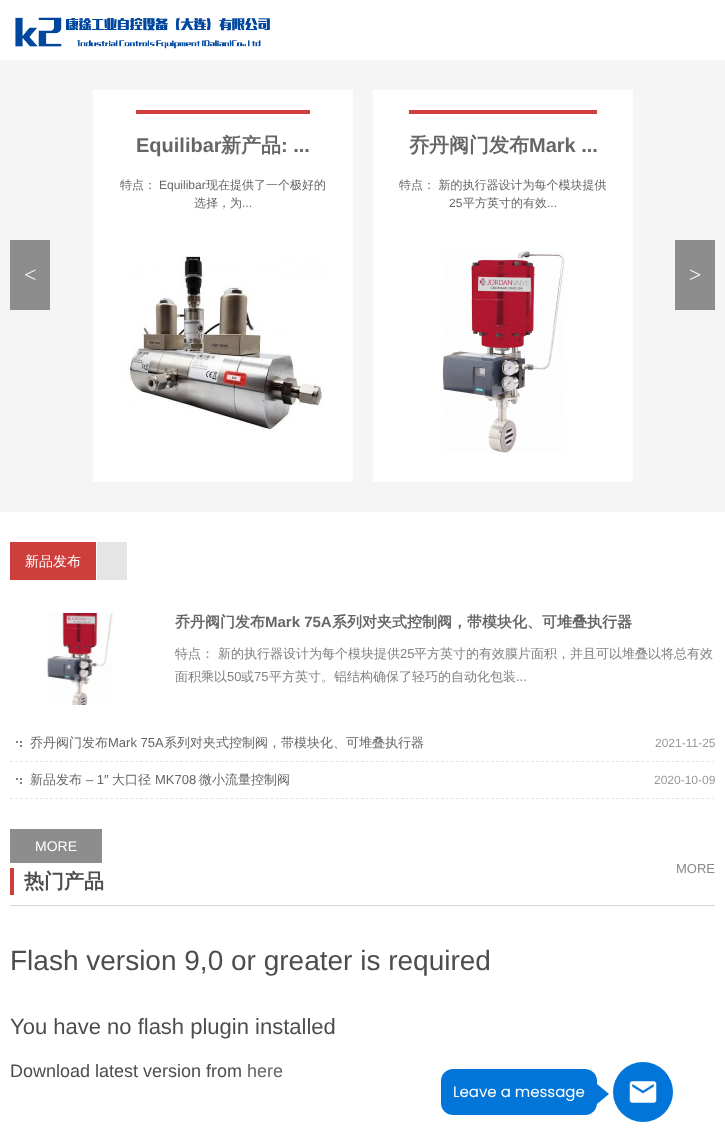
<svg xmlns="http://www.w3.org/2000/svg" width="725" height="1134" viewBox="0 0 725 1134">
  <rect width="100%" height="100%" fill="rgb(255,255,255)"/>
  <image x="15" y="17" width="255" height="32" href="pic1.png"/>
  <rect x="0" y="60" width="725" height="452" fill="rgb(245,245,245)"/>
  <rect x="93" y="90" width="260" height="392" fill="rgb(255,255,255)"/>
  <rect x="136" y="110" width="174" height="4" fill="rgb(207,64,60)"/>
  <text x="136" y="152" font-family="Liberation Sans" font-size="20" font-weight="bold" fill="rgb(102,102,102)">Equilibar</text>
  <text x="221" y="152" font-family="WenQuanYi Zen Hei" font-size="20" font-weight="bold" fill="rgb(102,102,102)">新产品</text>
  <text x="281" y="152" font-family="Liberation Sans" font-size="20" font-weight="bold" fill="rgb(102,102,102)">: ...</text>
  <text x="120" y="189" font-family="WenQuanYi Zen Hei" font-size="12" font-weight="500" fill="rgb(102,102,102)">特点：</text>
  <text x="159" y="189" font-family="Liberation Sans" font-size="12" fill="rgb(102,102,102)">Equilibar</text>
  <g font-family="WenQuanYi Zen Hei" font-size="12" font-weight="500" fill="rgb(102,102,102)">
    <text x="206" y="189">现在提供了一个极好的</text>
    <text x="194" y="207">选择，为</text>
  </g>
  <text x="242" y="207" font-family="Liberation Sans" font-size="12" fill="rgb(102,102,102)">...</text>
  <image x="126" y="256" width="199" height="176" href="pic2.png"/>
  <rect x="373" y="90" width="260" height="392" fill="rgb(255,255,255)"/>
  <rect x="409" y="110" width="188" height="4" fill="rgb(207,64,60)"/>
  <text x="409" y="152" font-family="WenQuanYi Zen Hei" font-size="20" font-weight="bold" fill="rgb(102,102,102)">乔丹阀门发布</text>
  <text x="529" y="152" font-family="Liberation Sans" font-size="20" font-weight="bold" fill="rgb(102,102,102)">Mark ...</text>
  <text x="399" y="189" font-family="WenQuanYi Zen Hei" font-size="12" font-weight="500" fill="rgb(102,102,102)">特点： 新的执行器设计为每个模块提供</text>
  <text x="449" y="207" font-family="Liberation Sans" font-size="12" fill="rgb(102,102,102)">25</text>
  <text x="463" y="207" font-family="WenQuanYi Zen Hei" font-size="12" font-weight="500" fill="rgb(102,102,102)">平方英寸的有效</text>
  <text x="547" y="207" font-family="Liberation Sans" font-size="12" fill="rgb(102,102,102)">...</text>
  <image x="442" y="251" width="123" height="202" href="pic3.png"/>
  <rect x="10" y="240" width="40" height="70" fill="rgb(141,141,141)"/>
  <text x="24" y="282" font-family="Liberation Serif" font-size="22" fill="rgb(255,255,255)">&lt;</text>
  <rect x="675" y="240" width="40" height="70" fill="rgb(141,141,141)"/>
  <text x="689" y="282" font-family="Liberation Serif" font-size="22" fill="rgb(255,255,255)">&gt;</text>
  <rect x="10" y="542" width="86" height="38" fill="rgb(206,63,60)"/>
  <text x="25" y="566" font-family="WenQuanYi Zen Hei" font-size="14" font-weight="500" fill="rgb(255,255,255)">新品发布</text>
  <rect x="97" y="542" width="30" height="38" fill="rgb(229,229,229)"/>
  <image x="47" y="613" width="66" height="92" href="pic4.png"/>
  <text x="175" y="627" font-family="WenQuanYi Zen Hei" font-size="15" font-weight="bold" fill="rgb(102,102,102)">乔丹阀门发布</text>
  <text x="265" y="627" font-family="Liberation Sans" font-size="15" font-weight="bold" fill="rgb(102,102,102)">Mark 75A</text>
  <text x="332" y="627" font-family="WenQuanYi Zen Hei" font-size="15" font-weight="bold" fill="rgb(102,102,102)">系列对夹式控制阀，带模块化、可堆叠执行器</text>
  <text x="175" y="658" font-family="WenQuanYi Zen Hei" font-size="13" font-weight="500" fill="rgb(128,128,128)">特点： 新的执行器设计为每个模块提供</text>
  <text x="400" y="658" font-family="Liberation Sans" font-size="13" fill="rgb(128,128,128)">25</text>
  <g font-family="WenQuanYi Zen Hei" font-size="13" font-weight="500" fill="rgb(128,128,128)">
    <text x="414" y="658">平方英寸的有效膜片面积，并且可以堆叠以将总有效</text>
    <text x="175" y="681">面积乘以</text>
  </g>
  <text x="227" y="681" font-family="Liberation Sans" font-size="13" fill="rgb(128,128,128)">50</text>
  <text x="241" y="681" font-family="WenQuanYi Zen Hei" font-size="13" font-weight="500" fill="rgb(128,128,128)">或</text>
  <text x="254" y="681" font-family="Liberation Sans" font-size="13" fill="rgb(128,128,128)">75</text>
  <text x="269" y="681" font-family="WenQuanYi Zen Hei" font-size="13" font-weight="500" fill="rgb(128,128,128)">平方英寸。铝结构确保了轻巧的自动化包装</text>
  <text x="516" y="681" font-family="Liberation Sans" font-size="13" fill="rgb(128,128,128)">...</text>
  <path d="M10 761.5H715" fill="none" stroke="rgb(229,229,229)" stroke-dasharray="3 2.01"/>
  <image x="16" y="741" width="6" height="6" href="pic5.png"/>
  <text x="30" y="747" font-family="WenQuanYi Zen Hei" font-size="13" font-weight="500" fill="rgb(102,102,102)">乔丹阀门发布</text>
  <text x="108" y="747" font-family="Liberation Sans" font-size="13" fill="rgb(102,102,102)">Mark 75A</text>
  <text x="164" y="747" font-family="WenQuanYi Zen Hei" font-size="13" font-weight="500" fill="rgb(102,102,102)">系列对夹式控制阀，带模块化、可堆叠执行器</text>
  <text x="655" y="747" font-family="Liberation Sans" font-size="12" fill="rgb(153,153,153)">2021-11-25</text>
  <path d="M10 798.5H715" fill="none" stroke="rgb(229,229,229)" stroke-dasharray="3 2.01"/>
  <image x="16" y="778" width="6" height="6" href="pic5.png"/>
  <text x="30" y="784" font-family="WenQuanYi Zen Hei" font-size="13" font-weight="500" fill="rgb(102,102,102)">新品发布</text>
  <text x="86" y="784" font-family="Liberation Sans" font-size="13" fill="rgb(102,102,102)">– 1″</text>
  <text x="112" y="784" font-family="WenQuanYi Zen Hei" font-size="13" font-weight="500" fill="rgb(102,102,102)">大口径</text>
  <text x="155" y="784" font-family="Liberation Sans" font-size="13" fill="rgb(102,102,102)">MK708</text>
  <text x="199" y="784" font-family="WenQuanYi Zen Hei" font-size="13" font-weight="500" fill="rgb(102,102,102)">微小流量控制阀</text>
  <text x="654" y="784" font-family="Liberation Sans" font-size="12" fill="rgb(153,153,153)">2020-10-09</text>
  <rect x="10" y="829" width="92" height="34" fill="rgb(141,141,141)"/>
  <text x="35" y="851" font-family="Liberation Sans" font-size="14" fill="rgb(255,255,255)">MORE</text>
  <rect x="10" y="905" width="705" height="1" fill="rgb(214,214,214)"/>
  <text x="676" y="873" font-family="Liberation Sans" font-size="13" fill="rgb(136,136,136)">MORE</text>
  <rect x="10" y="868" width="4" height="27" fill="rgb(206,63,60)"/>
  <text x="24" y="888" font-family="WenQuanYi Zen Hei" font-size="20" font-weight="bold" fill="rgb(77,77,77)">热门产品</text>
  <text x="10" y="970" font-family="Liberation Sans" font-size="28" fill="rgb(77,77,77)">Flash version 9,0 or greater is required</text>
  <text x="10" y="1034" font-family="Liberation Sans" font-size="22" fill="rgb(77,77,77)">You have no flash plugin installed</text>
  <text x="10" y="1077" font-family="Liberation Sans" font-size="18" fill="rgb(77,77,77)">Download latest version from</text>
  <text x="247" y="1077" font-family="Liberation Sans" font-size="18" fill="rgb(102,102,102)">here</text>
  <circle cx="643" cy="1092" r="30" fill="rgb(2,117,216)"/>
  <rect x="441" y="1069" width="156" height="46" rx="12" fill="rgb(2,117,216)"/>
  <text x="453" y="1097" font-family="Poppins" font-size="15" fill="rgb(255,255,255)">Leave a message</text>
  <path d="M597 1104V1084L609 1094Z" fill="rgb(2,117,216)"/>
  <image x="629" y="1081" width="28" height="22" href="pic6.png"/>
</svg>
